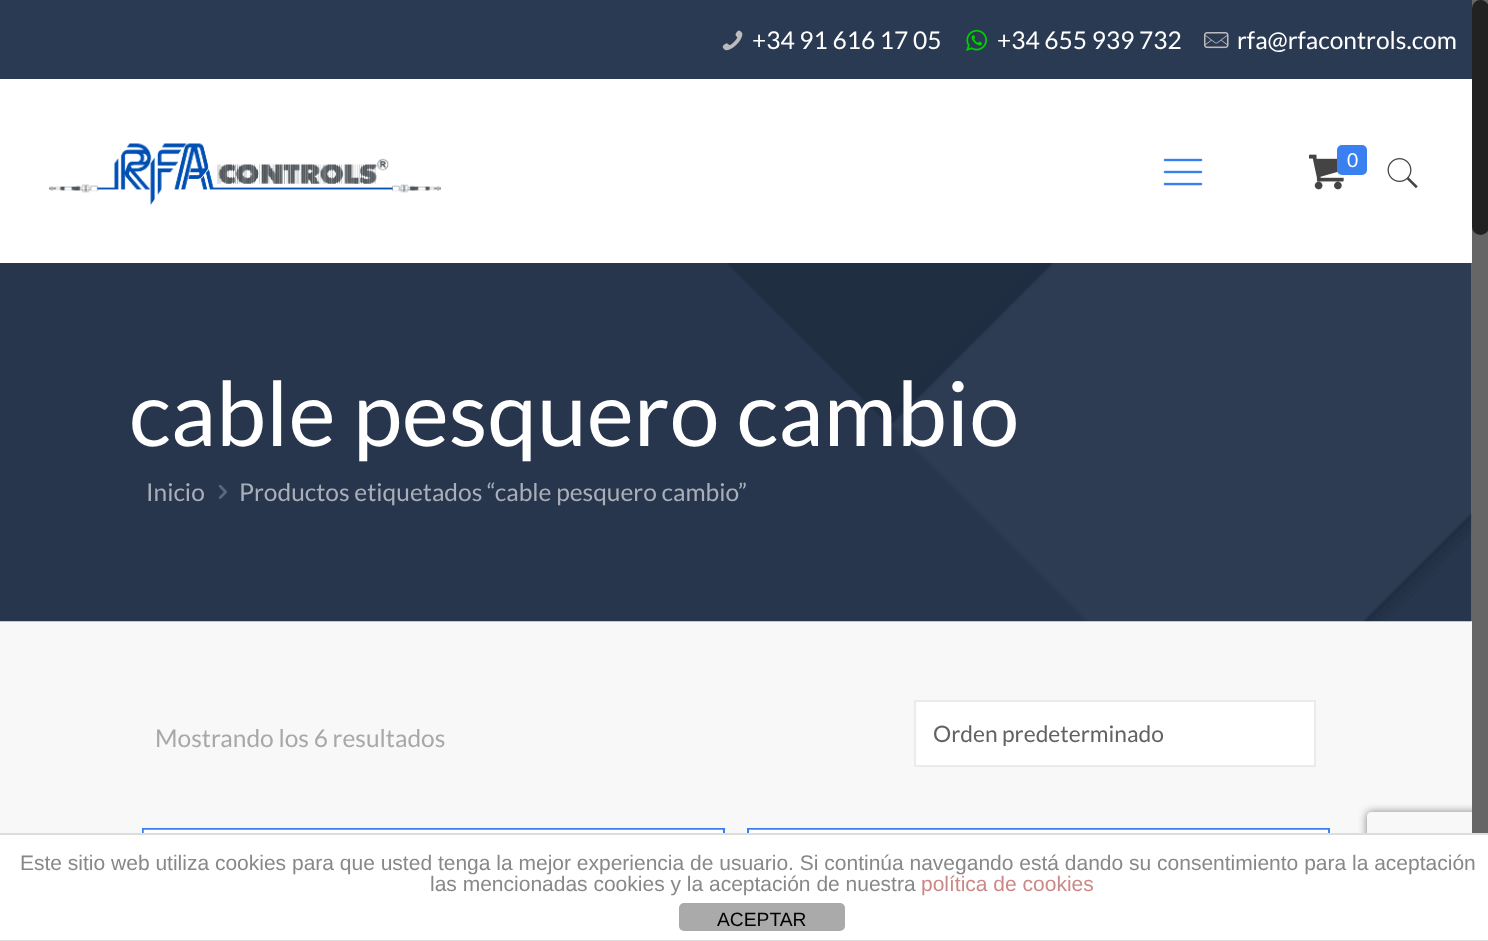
<svg xmlns="http://www.w3.org/2000/svg" width="1488" height="941" viewBox="0 0 1488 941">
  <defs>
    <clipPath id="clip1"><path d="M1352 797H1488V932H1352ZM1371 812H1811C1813 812 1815 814 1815 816V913C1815 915 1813 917 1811 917H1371C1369 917 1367 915 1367 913V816C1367 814 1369 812 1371 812Z" clip-rule="evenodd"/></clipPath>
  </defs>
  <rect width="100%" height="100%" fill="rgb(248,248,248)"/>
  <image x="0" y="263" width="1472" height="359" href="pic1.png"/>
  <rect x="0" y="0" width="1472" height="79" fill="rgb(43,58,83)"/>
  <image x="722" y="30" width="21" height="21" href="pic2.png"/>
  <text x="752" y="49" font-family="Lato" font-size="24.5" fill="rgb(255,255,255)">+34 91 616 17 05</text>
  <image x="966" y="29" width="21" height="22" href="pic3.png"/>
  <text x="997" y="49" font-family="Lato" font-size="24.5" fill="rgb(255,255,255)">+34 655 939 732</text>
  <image x="1204" y="32" width="25" height="17" href="pic4.png"/>
  <text x="1237" y="49" font-family="Lato" font-size="24.5" fill="rgb(255,255,255)">rfa@rfacontrols.com</text>
  <rect x="0" y="79" width="1472" height="184" fill="rgb(255,255,255)"/>
  <image x="49" y="143" width="392" height="62" href="pic5.png"/>
  <image x="1163" y="158" width="40" height="28" href="pic6.png"/>
  <image x="1309" y="154" width="35" height="36" href="pic7.png"/>
  <rect x="1337" y="145" width="30" height="30" rx="5" fill="rgb(58,128,241)"/>
  <text x="1347" y="167" font-family="Lato" font-size="19.25" fill="rgb(255,255,255)">0</text>
  <image x="1387" y="158" width="31" height="31" href="pic8.png"/>
  <text x="129" y="446" font-family="Lato" font-size="89.25" fill="rgb(255,255,255)">cable pesquero cambio</text>
  <text x="146" y="501" font-family="Lato" font-size="24.5" fill="rgb(169,175,184)">Inicio</text>
  <image x="218" y="484" width="9" height="15" href="pic9.png"/>
  <text x="239" y="501" font-family="Lato" font-size="24.5" fill="rgb(169,175,184)">Productos etiquetados “cable pesquero cambio”</text>
  <text x="155" y="747" font-family="Lato" font-size="24.5" fill="rgb(168,168,168)">Mostrando los 6 resultados</text>
  <rect x="915" y="701" width="400" height="65" fill="rgb(255,255,255)" stroke="rgb(235,235,235)" stroke-width="2"/>
  <text x="933" y="742" font-family="Lato" font-size="22.75" fill="rgb(98,98,98)">Orden predeterminado</text>
  <rect x="143" y="829" width="581" height="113" fill="none" stroke="rgb(58,128,241)" stroke-width="2"/>
  <image x="143" y="829" width="580" height="4" href="pic10.png"/>
  <rect x="748" y="829" width="581" height="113" fill="none" stroke="rgb(58,128,241)" stroke-width="2"/>
  <image x="749" y="829" width="580" height="4" href="pic11.png"/>
  <g clip-path="url(#clip1)">
    <rect x="1367" y="812" width="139" height="105" rx="4" fill="rgb(128,128,128)" filter="blur(4.5px)"/>
  </g>
  <rect x="1472" y="0" width="16" height="833" fill="rgb(102,102,102)"/>
  <rect x="1472" y="0" width="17" height="235" rx="8.5" fill="rgb(34,34,34)"/>
  <rect x="0" y="835" width="1488" height="105" fill="rgb(255,255,255)"/>
  <rect x="0" y="833" width="1488" height="2" fill="rgb(221,221,221)"/>
  <rect x="0" y="940" width="1488" height="1" fill="rgb(221,221,221)"/>
  <g font-family="Liberation Sans" font-size="21" fill="rgb(136,136,136)">
    <text x="20" y="870">Este sitio web utiliza cookies para que usted tenga la mejor experiencia de usuario. Si continúa navegando está dando su consentimiento para la aceptación</text>
    <text x="430" y="891">las mencionadas cookies y la aceptación de nuestra</text>
  </g>
  <text x="921" y="891" font-family="Liberation Sans" font-size="21" fill="rgb(204,136,136)">política de cookies</text>
  <rect x="679" y="903" width="166" height="28" rx="5" fill="rgb(170,170,170)"/>
  <text x="717" y="926" font-family="Liberation Sans" font-size="19.25" fill="rgb(0,0,0)">ACEPTAR</text>
</svg>
